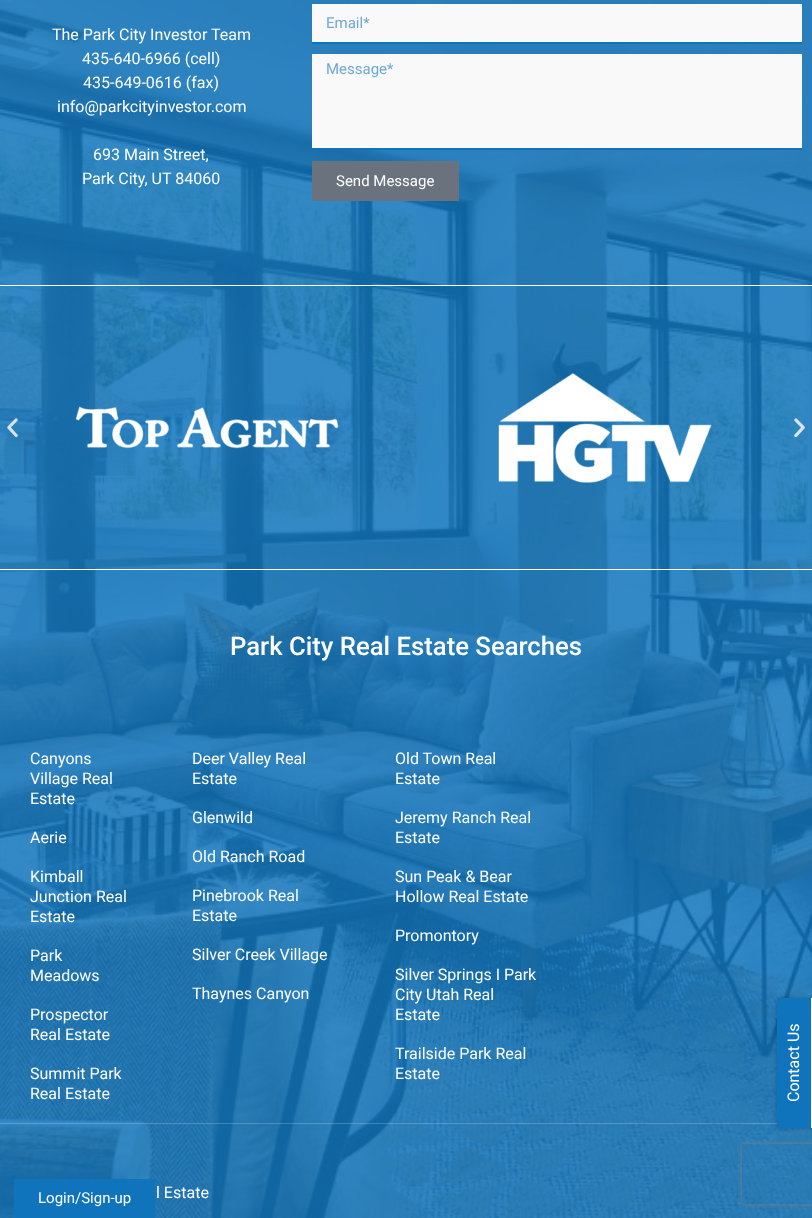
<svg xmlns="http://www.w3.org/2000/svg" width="812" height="1218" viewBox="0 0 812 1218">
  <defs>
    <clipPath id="clip1"><path d="M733 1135H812V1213H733ZM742 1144H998V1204H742Z" clip-rule="evenodd"/></clipPath>
  </defs>
  <rect width="100%" height="100%" fill="rgb(255,255,255)"/>
  <image x="0" y="0" width="812" height="1218" href="pic1.png"/>
  <g font-family="Roboto" font-size="16" fill="rgb(255,255,255)">
    <text x="52" y="40">The Park City Investor Team</text>
    <text x="82" y="64">435-640-6966 (cell)</text>
    <text x="83" y="88">435-649-0616 (fax)</text>
    <text x="57" y="112">info@parkcityinvestor.com</text>
    <text x="93" y="160">693 Main Street,</text>
    <text x="82" y="184">Park City, UT 84060</text>
  </g>
  <rect x="312" y="4" width="490" height="38" fill="rgb(249,249,249)"/>
  <rect x="312" y="42" width="490" height="2" fill="rgb(15,116,187)"/>
  <text x="326" y="28" font-family="Roboto" font-size="15" fill="rgb(109,169,212)">Email*</text>
  <rect x="312" y="54" width="490" height="94" fill="rgb(249,249,249)"/>
  <rect x="312" y="148" width="490" height="2" fill="rgb(15,116,187)"/>
  <text x="326" y="74" font-family="Roboto" font-size="15" fill="rgb(109,169,212)">Message*</text>
  <rect x="312" y="161" width="147" height="40" fill="rgb(105,114,125)"/>
  <text x="336" y="186" font-family="Roboto" font-size="15" fill="rgb(255,255,255)">Send Message</text>
  <g clip-path="url(#clip1)">
    <rect x="742" y="1144" width="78" height="60" fill="rgb(128,128,128)" filter="blur(2.5px)"/>
  </g>
  <rect x="0" y="285" width="812" height="1" fill="rgb(255,255,255)"/>
  <image x="7" y="418" width="11" height="20" href="pic2.png"/>
  <image x="75" y="406" width="264" height="43" href="pic3.png"/>
  <image x="498" y="373" width="214" height="110" href="pic4.png"/>
  <image x="794" y="418" width="11" height="20" href="pic5.png"/>
  <rect x="0" y="569" width="812" height="1" fill="rgb(255,255,255)"/>
  <text x="230" y="655" font-family="Roboto" font-size="25.7" font-weight="500" fill="rgb(255,255,255)">Park City Real Estate Searches</text>
  <g font-family="Roboto" font-size="16" fill="rgb(255,255,255)">
    <text>
      <tspan x="30" y="764">Canyons</tspan>
      <tspan x="30" y="784">Village Real</tspan>
      <tspan x="30" y="804">Estate</tspan>
    </text>
    <text x="30" y="843">Aerie</text>
    <text>
      <tspan x="30" y="882">Kimball</tspan>
      <tspan x="30" y="902">Junction Real</tspan>
      <tspan x="30" y="922">Estate</tspan>
    </text>
    <text>
      <tspan x="30" y="961">Park</tspan>
      <tspan x="30" y="981">Meadows</tspan>
    </text>
    <text>
      <tspan x="30" y="1020">Prospector</tspan>
      <tspan x="30" y="1040">Real Estate</tspan>
    </text>
    <text>
      <tspan x="30" y="1079">Summit Park</tspan>
      <tspan x="30" y="1099">Real Estate</tspan>
    </text>
    <text>
      <tspan x="192" y="764">Deer Valley Real</tspan>
      <tspan x="192" y="784">Estate</tspan>
    </text>
    <text x="192" y="823">Glenwild</text>
    <text x="192" y="862">Old Ranch Road</text>
    <text>
      <tspan x="192" y="901">Pinebrook Real</tspan>
      <tspan x="192" y="921">Estate</tspan>
    </text>
    <text x="192" y="960">Silver Creek Village</text>
    <text x="192" y="999">Thaynes Canyon</text>
    <text>
      <tspan x="395" y="764">Old Town Real</tspan>
      <tspan x="395" y="784">Estate</tspan>
    </text>
    <text>
      <tspan x="395" y="823">Jeremy Ranch Real</tspan>
      <tspan x="395" y="843">Estate</tspan>
    </text>
    <text>
      <tspan x="395" y="882">Sun Peak &amp; Bear</tspan>
      <tspan x="395" y="902">Hollow Real Estate</tspan>
    </text>
    <text x="395" y="941">Promontory</text>
    <text>
      <tspan x="395" y="980">Silver Springs I Park</tspan>
      <tspan x="395" y="1000">City Utah Real</tspan>
      <tspan x="395" y="1020">Estate</tspan>
    </text>
    <text>
      <tspan x="395" y="1059">Trailside Park Real</tspan>
      <tspan x="395" y="1079">Estate</tspan>
    </text>
  </g>
  <rect x="0" y="1123" width="777" height="1" fill="rgba(255,255,255,0.2)"/>
  <text x="156" y="1198" font-family="Roboto" font-size="16" fill="rgb(255,255,255)">l Estate</text>
  <rect x="777" y="998" width="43" height="130" fill="rgba(0,0,0,0.25)" filter="blur(2.5px)"/>
  <rect x="811" y="998" width="1" height="130" fill="rgb(255,255,255)"/>
  <rect x="777" y="998" width="34" height="130" fill="rgb(15,116,187)"/>
  <text x="799" y="1102" transform="rotate(-90 799 1102)" font-family="Roboto" font-size="16" fill="rgb(255,255,255)">Contact Us</text>
  <rect x="14" y="1179" width="141" height="39" fill="rgb(15,116,187)"/>
  <text x="38" y="1203" font-family="Roboto" font-size="15" fill="rgb(255,255,255)">Login/Sign-up</text>
</svg>
